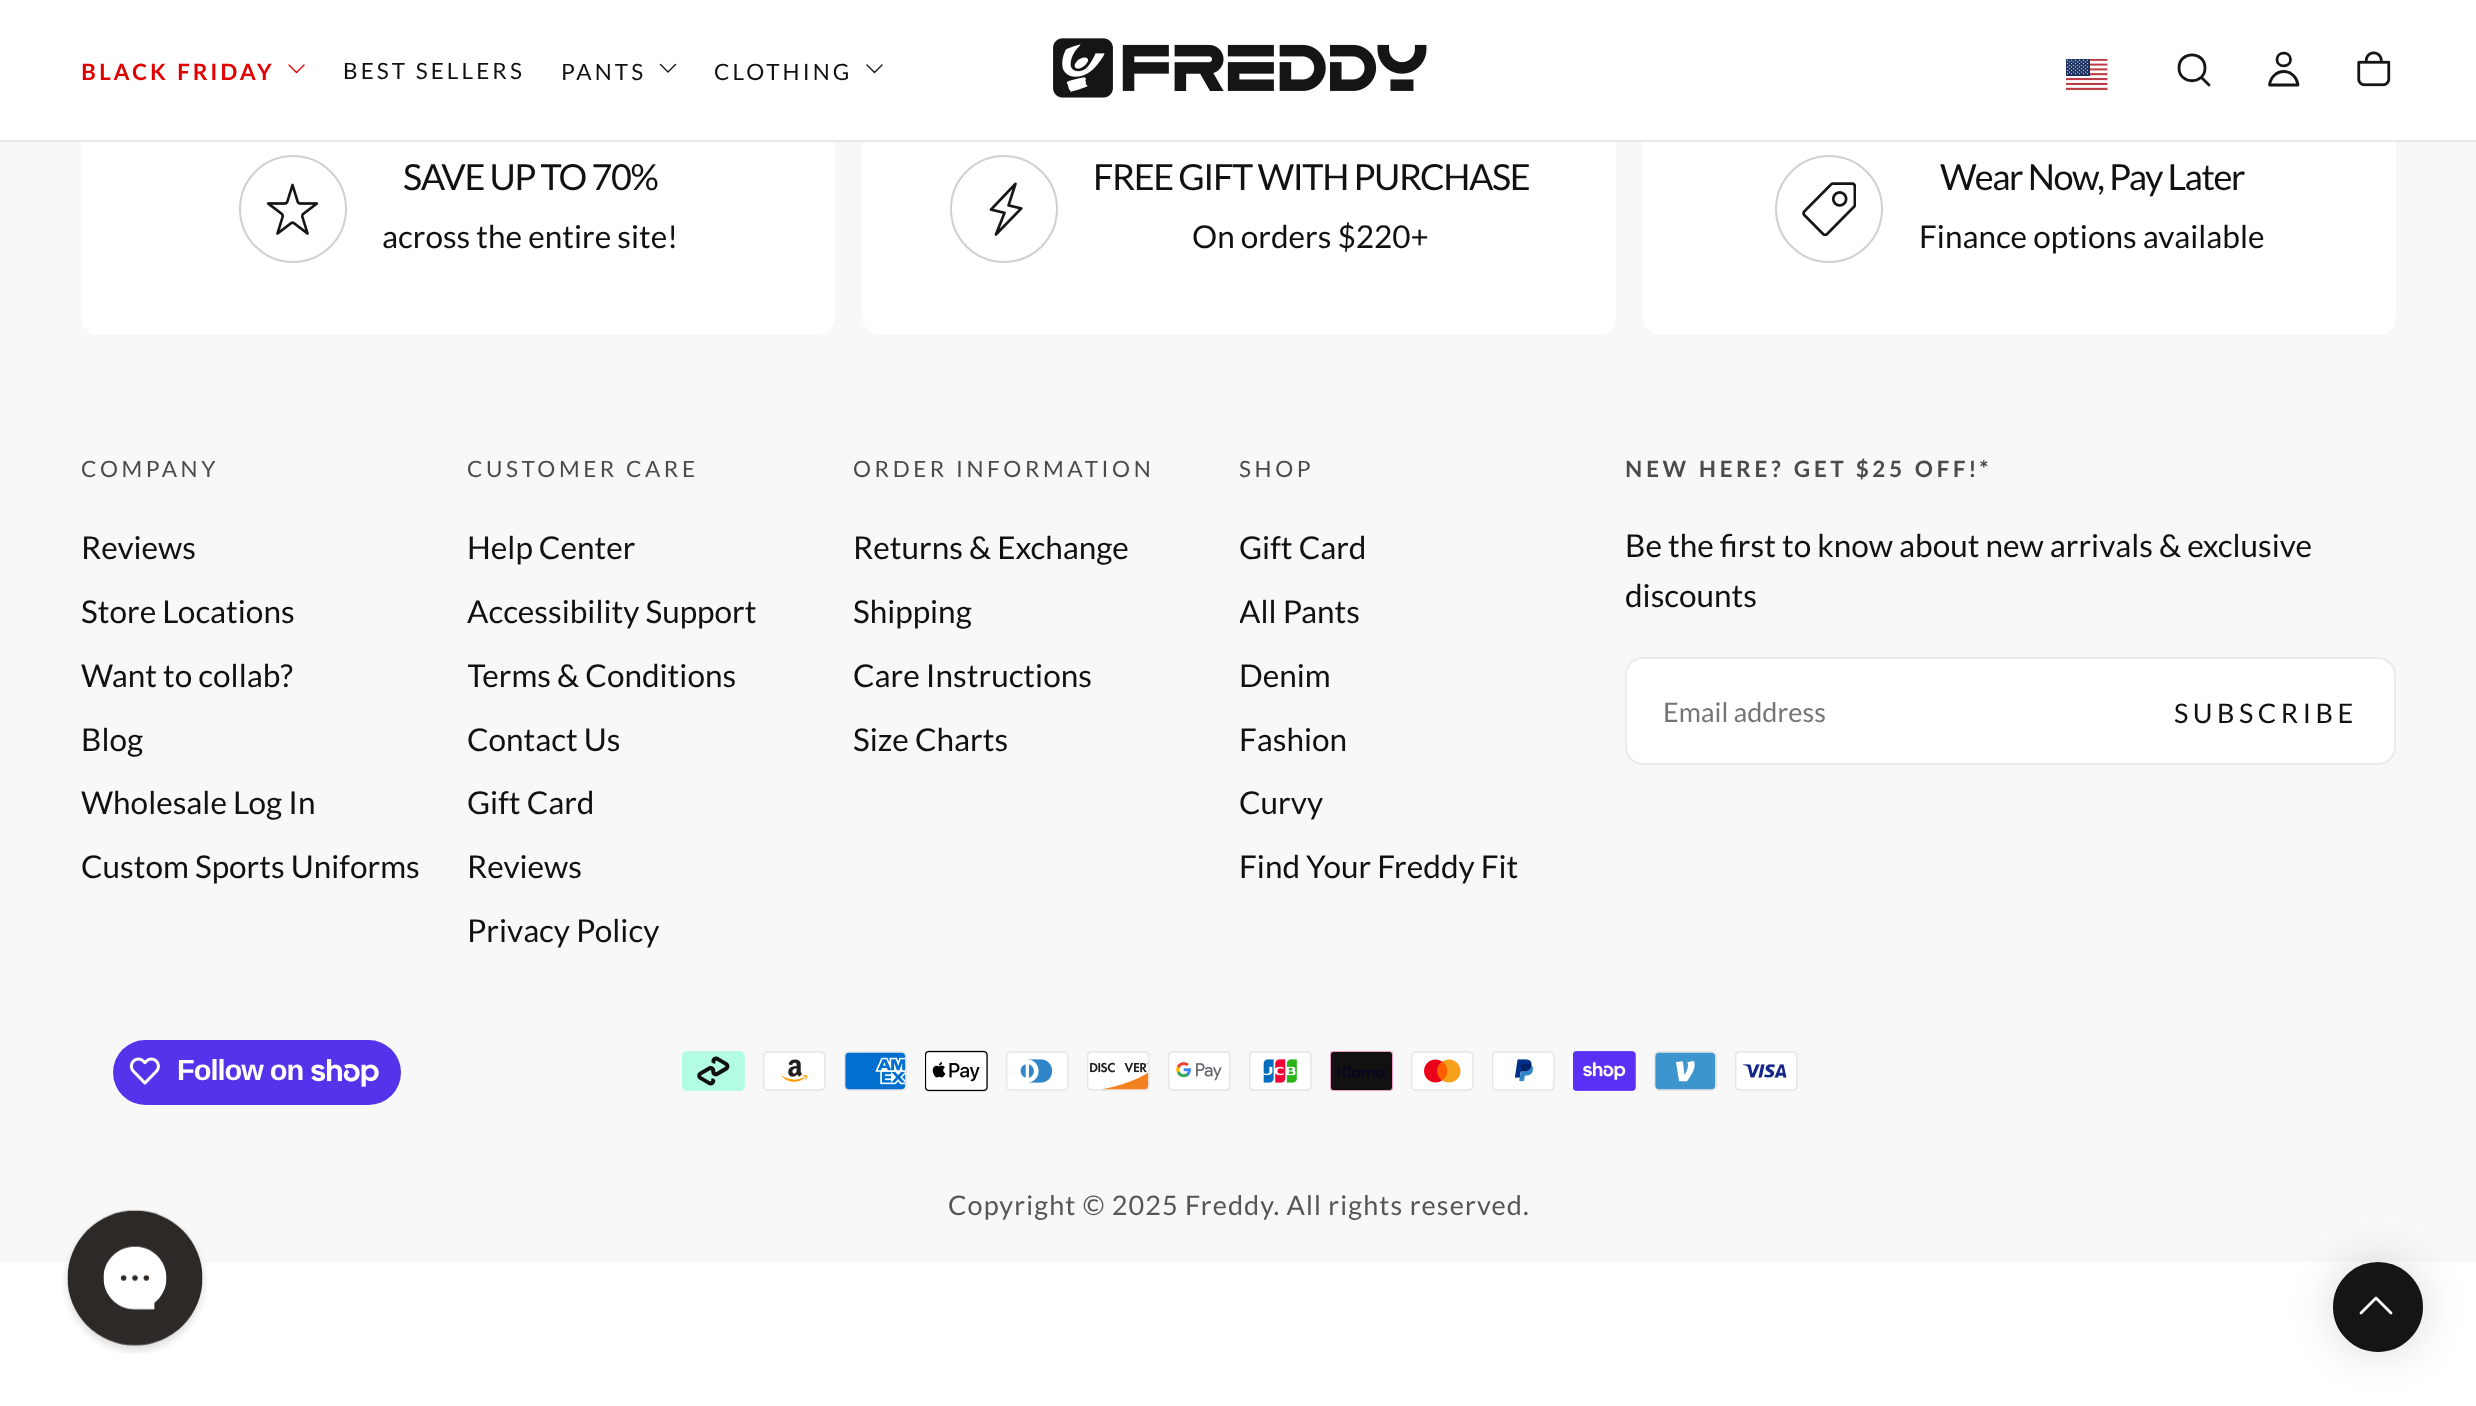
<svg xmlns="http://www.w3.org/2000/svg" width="2476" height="1406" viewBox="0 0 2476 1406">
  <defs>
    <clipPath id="clip1"><rect x="468" y="443" width="385" height="516"/></clipPath>
    <clipPath id="clip2"><rect x="1240" y="443" width="385" height="453"/></clipPath>
  </defs>
  <rect width="100%" height="100%" fill="rgb(255,255,255)"/>
  <rect x="0" y="142" width="2476" height="1120" fill="rgb(248,248,248)"/>
  <rect x="81" y="83" width="754" height="252" rx="18" fill="rgb(255,255,255)"/>
  <rect x="862" y="83" width="754" height="252" rx="18" fill="rgb(255,255,255)"/>
  <rect x="1643" y="83" width="753" height="252" rx="18" fill="rgb(255,255,255)"/>
  <rect x="0" y="140" width="2476" height="2" fill="rgb(232,232,232)"/>
  <text x="81" y="80" font-family="Lato" font-size="22.5" font-weight="bold" letter-spacing="3.1" fill="rgb(224,0,0)">BLACK FRIDAY</text>
  <path d="M304 65L296.5 72.5L289 65" fill="none" stroke="rgb(224,0,0)" stroke-width="1.4" stroke-linecap="round" stroke-linejoin="round"/>
  <g font-family="Lato" font-size="22.5" letter-spacing="3.1" fill="rgb(17,17,17)">
    <text x="343" y="79">BEST SELLERS</text>
    <text x="561" y="80">PANTS</text>
  </g>
  <path d="M675.5 64.5L668 72L660.5 64.5" fill="none" stroke="rgb(21,21,21)" stroke-width="1.4" stroke-linecap="round" stroke-linejoin="round"/>
  <text x="714" y="80" font-family="Lato" font-size="22.5" letter-spacing="3.1" fill="rgb(17,17,17)">CLOTHING</text>
  <path d="M882 65L874.5 72.5L867 65" fill="none" stroke="rgb(21,21,21)" stroke-width="1.4" stroke-linecap="round" stroke-linejoin="round"/>
  <image x="1053" y="38" width="374" height="60" href="pic1.png"/>
  <image x="2066" y="59" width="42" height="31" href="pic2.png"/>
  <path d="M2209 85L2201.5 77.5M2205 68C2205 85 2179 85 2179 68C2179 50.5 2205 50.5 2205 68Z" fill="none" stroke="rgb(21,21,21)" stroke-width="2.8" stroke-linecap="round"/>
  <path d="M2290.5 59.5C2290.5 68 2277 68 2277 59.5C2277 51 2290.5 51 2290.5 59.5ZM2284 71.5C2276 71.5 2270.5 77.5 2269.5 85H2298C2297 77.5 2291.5 71.5 2284 71.5Z" fill="none" stroke="rgb(21,21,21)" stroke-width="2.8" stroke-linejoin="round"/>
  <image x="2357" y="51" width="34" height="36" href="pic3.png"/>
  <circle cx="293" cy="209" r="53" fill="none" stroke="rgb(208,208,208)" stroke-width="2"/>
  <image x="266" y="183" width="53" height="52" href="pic4.png"/>
  <text x="403" y="190" font-family="Lato" font-size="36" letter-spacing="-1.4" fill="rgb(17,17,17)">SAVE UP TO 70%</text>
  <text x="382" y="248" font-family="Lato" font-size="31.5" fill="rgb(17,17,17)">across the entire site!</text>
  <circle cx="1004" cy="209" r="53" fill="none" stroke="rgb(208,208,208)" stroke-width="2"/>
  <image x="989" y="182" width="34" height="54" href="pic5.png"/>
  <text x="1093" y="190" font-family="Lato" font-size="36" letter-spacing="-1.4" fill="rgb(17,17,17)">FREE GIFT WITH PURCHASE</text>
  <text x="1192" y="248" font-family="Lato" font-size="31.5" fill="rgb(17,17,17)">On orders $220+</text>
  <circle cx="1829" cy="209" r="53" fill="none" stroke="rgb(208,208,208)" stroke-width="2"/>
  <image x="1802" y="182" width="54" height="54" href="pic6.png"/>
  <text x="1940" y="190" font-family="Lato" font-size="36" letter-spacing="-1.4" fill="rgb(17,17,17)">Wear Now, Pay Later</text>
  <text x="1919" y="248" font-family="Lato" font-size="31.5" fill="rgb(17,17,17)">Finance options available</text>
  <text x="81" y="477" font-family="Lato" font-size="22.5" letter-spacing="3.6" fill="rgb(75,75,75)">COMPANY</text>
  <g font-family="Lato" font-size="31.5" fill="rgb(17,17,17)">
    <text x="81" y="559">Reviews</text>
    <text x="81" y="623">Store Locations</text>
    <text x="81" y="687">Want to collab?</text>
    <text x="81" y="751">Blog</text>
    <text x="81" y="814">Wholesale Log In</text>
    <text x="81" y="878">Custom Sports Uniforms</text>
  </g>
  <text x="467" y="477" font-family="Lato" font-size="22.5" letter-spacing="3.6" fill="rgb(75,75,75)">CUSTOMER CARE</text>
  <g font-family="Lato" font-size="31.5" fill="rgb(17,17,17)">
    <text x="467" y="559">Help Center</text>
    <text x="467" y="623">Accessibility Support</text>
  </g>
  <g clip-path="url(#clip1)">
    <text x="467" y="687" font-family="Lato" font-size="31.5" fill="rgb(17,17,17)">Terms &amp; Conditions</text>
  </g>
  <g font-family="Lato" font-size="31.5" fill="rgb(17,17,17)">
    <text x="467" y="751">Contact Us</text>
    <text x="467" y="814">Gift Card</text>
    <text x="467" y="878">Reviews</text>
    <text x="467" y="942">Privacy Policy</text>
  </g>
  <text x="853" y="477" font-family="Lato" font-size="22.5" letter-spacing="3.6" fill="rgb(75,75,75)">ORDER INFORMATION</text>
  <g font-family="Lato" font-size="31.5" fill="rgb(17,17,17)">
    <text x="853" y="559">Returns &amp; Exchange</text>
    <text x="853" y="623">Shipping</text>
    <text x="853" y="687">Care Instructions</text>
    <text x="853" y="751">Size Charts</text>
  </g>
  <text x="1239" y="477" font-family="Lato" font-size="22.5" letter-spacing="3.6" fill="rgb(75,75,75)">SHOP</text>
  <text x="1239" y="559" font-family="Lato" font-size="31.5" fill="rgb(17,17,17)">Gift Card</text>
  <g clip-path="url(#clip2)">
    <text x="1239" y="623" font-family="Lato" font-size="31.5" fill="rgb(17,17,17)">All Pants</text>
  </g>
  <g font-family="Lato" font-size="31.5" fill="rgb(17,17,17)">
    <text x="1239" y="687">Denim</text>
    <text x="1239" y="751">Fashion</text>
    <text x="1239" y="814">Curvy</text>
    <text x="1239" y="878">Find Your Freddy Fit</text>
  </g>
  <text x="1625" y="477" font-family="Lato" font-size="22.5" font-weight="bold" letter-spacing="3.6" fill="rgb(75,75,75)">NEW HERE? GET $25 OFF!*</text>
  <g font-family="Lato" font-size="31.5" fill="rgb(17,17,17)">
    <text>
      <tspan x="1625" y="557">Be the first to know about new arrivals &amp; exclusive</tspan>
      <tspan x="1625" y="607">discounts</tspan>
    </text>
  </g>
  <rect x="1626" y="658" width="769" height="106" rx="17" fill="rgb(255,255,255)" stroke="rgb(235,235,235)" stroke-width="2"/>
  <text x="1663" y="722" font-family="Lato" font-size="27" fill="rgb(117,117,117)">Email address</text>
  <text x="2174" y="723" font-family="Lato" font-size="27" letter-spacing="4.5" fill="rgb(17,17,17)">SUBSCRIBE</text>
  <rect x="113" y="1040" width="288" height="65" rx="32.5" fill="rgb(84,51,235)"/>
  <image x="129" y="1057" width="31" height="28" href="pic7.png"/>
  <text x="177" y="1080" font-family="Liberation Sans" font-size="29" font-weight="bold" letter-spacing="-1" fill="rgb(255,255,255)">Follow on</text>
  <image x="311" y="1059" width="68" height="28" href="pic8.png"/>
  <image x="682" y="1051" width="63" height="40" href="pic9.png"/>
  <image x="763" y="1051" width="63" height="40" href="pic10.png"/>
  <image x="844" y="1051" width="63" height="40" href="pic11.png"/>
  <image x="925" y="1050" width="63" height="42" href="pic12.png"/>
  <image x="1006" y="1051" width="63" height="40" href="pic13.png"/>
  <image x="1087" y="1051" width="63" height="40" href="pic14.png"/>
  <image x="1168" y="1051" width="63" height="40" href="pic15.png"/>
  <image x="1249" y="1051" width="63" height="40" href="pic16.png"/>
  <image x="1330" y="1051" width="63" height="40" href="pic17.png"/>
  <image x="1411" y="1051" width="63" height="40" href="pic18.png"/>
  <image x="1492" y="1051" width="63" height="40" href="pic19.png"/>
  <image x="1573" y="1051" width="63" height="40" href="pic20.png"/>
  <image x="1654" y="1051" width="63" height="40" href="pic21.png"/>
  <image x="1735" y="1051" width="63" height="40" href="pic22.png"/>
  <text x="948" y="1215" font-family="Lato" font-size="27" letter-spacing="1.1" fill="rgb(86,86,86)">Copyright © 2025 Freddy. All rights reserved.</text>
  <image x="63" y="1209" width="144" height="145" href="pic23.png"/>
  <rect x="2333" y="1262" width="90" height="90" rx="45" fill="rgba(0,0,0,0.15)" filter="blur(22.5px)"/>
  <circle cx="2378" cy="1307" r="44" fill="rgb(21,21,21)" stroke="rgb(21,21,21)" stroke-width="2"/>
  <path d="M2361 1313L2376 1298L2391 1313" fill="none" stroke="rgb(255,255,255)" stroke-width="2.8" stroke-linecap="round" stroke-linejoin="round"/>
</svg>
